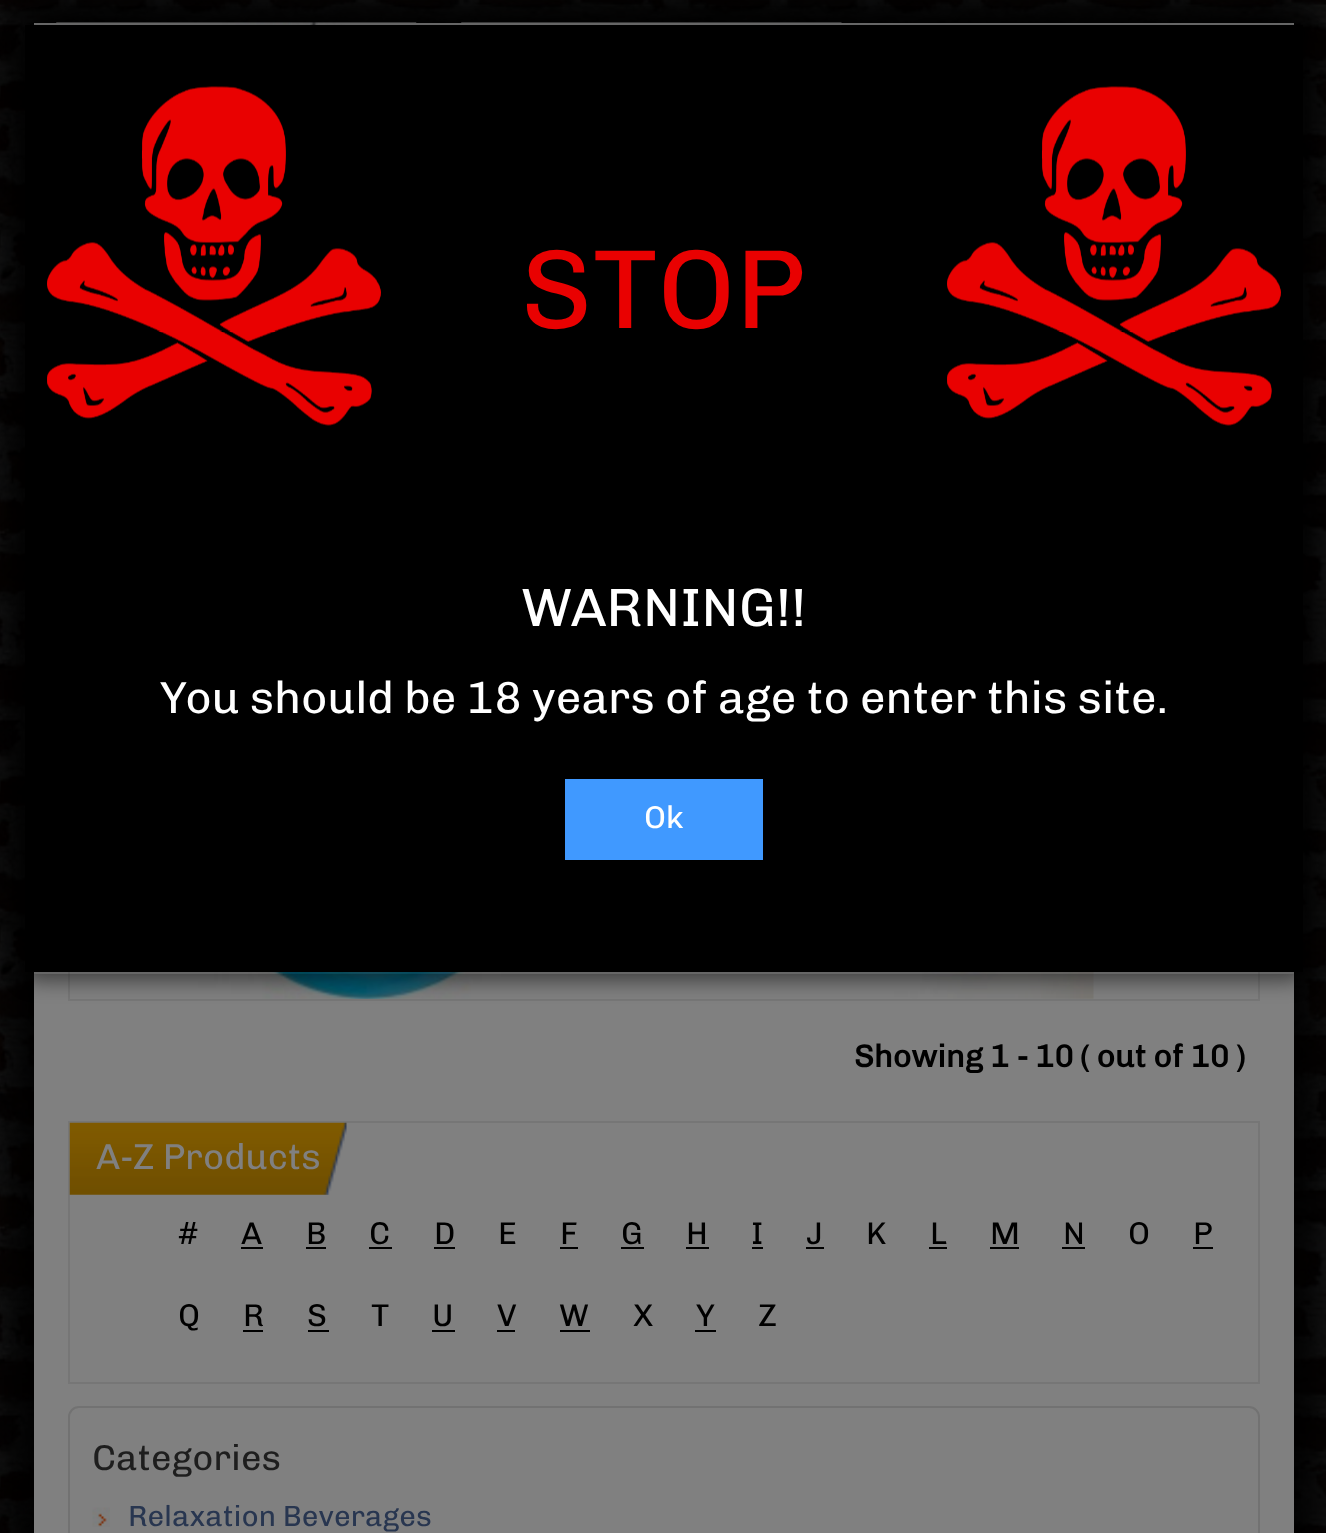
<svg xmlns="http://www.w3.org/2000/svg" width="1326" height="1533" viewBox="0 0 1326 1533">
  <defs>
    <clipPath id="clip1"><path d="M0 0H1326V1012H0ZM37 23H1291C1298.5 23 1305 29.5 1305 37V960C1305 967.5 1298.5 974 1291 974H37C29.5 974 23 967.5 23 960V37C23 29.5 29.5 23 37 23Z" clip-rule="evenodd"/></clipPath>
  </defs>
  <rect width="100%" height="100%" fill="rgb(255,255,255)"/>
  <image x="0" y="0" width="1326" height="1533" href="pic1.png"/>
  <rect x="-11" y="-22" width="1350" height="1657" fill="rgb(0,0,0)" filter="blur(34px)"/>
  <rect x="34" y="23" width="1260" height="1510" fill="rgb(128,128,128)"/>
  <image x="56" y="22" width="361" height="3" href="pic4.png"/>
  <image x="461" y="22" width="381" height="3" href="pic5.png"/>
  <rect x="69" y="660" width="1190" height="340" fill="none" stroke="rgb(118,118,118)" stroke-width="2"/>
  <image x="198" y="972" width="338" height="27" href="pic6.png"/>
  <image x="894" y="972" width="200" height="27" href="pic7.png"/>
  <g clip-path="url(#clip1)">
    <rect x="23" y="29" width="1282" height="952" rx="14" fill="rgba(0,0,0,0.5)" filter="blur(10px)"/>
  </g>
  <rect x="24" y="24" width="1280" height="949" rx="13" fill="none" stroke="rgba(0,0,0,0.2)" stroke-width="2"/>
  <rect x="25" y="25" width="1278" height="947" fill="rgb(0,0,0)"/>
  <image x="47" y="86" width="334" height="340" href="pic2.png"/>
  <text x="521" y="328" font-family="Chivo" font-size="112.5" fill="rgb(233,1,1)">STOP</text>
  <image x="947" y="86" width="334" height="340" href="pic3.png"/>
  <text x="521" y="626" font-family="Chivo" font-size="54" fill="rgb(255,255,255)">WARNING!!</text>
  <text x="160" y="713" font-family="Chivo" font-size="45" fill="rgb(255,255,255)">You should be 18 years of age to enter this site.</text>
  <rect x="565" y="779" width="198" height="81" fill="rgb(64,153,255)"/>
  <text x="644" y="828" font-family="Chivo" font-size="31.5" fill="rgb(255,255,255)">Ok</text>
  <g font-family="Chivo" font-size="31.5" font-weight="bold" fill="rgb(0,0,0)">
    <text x="854" y="1067">Showing 1 -</text>
    <text x="1035" y="1067">10</text>
    <text x="1080" y="1067">( out of 10 )</text>
  </g>
  <rect x="69" y="1122" width="1190" height="261" fill="none" stroke="rgb(118,118,118)" stroke-width="2"/>
  <image x="69" y="1122" width="278" height="73" href="pic8.png"/>
  <text x="96" y="1169" font-family="Chivo" font-size="36" fill="rgb(128,128,128)">A-Z Products</text>
  <g font-family="Chivo" font-size="31.5" fill="rgb(0,0,0)">
    <text x="178" y="1244">#</text>
    <text x="241" y="1244">A</text>
  </g>
  <rect x="241" y="1247" width="22" height="2" fill="rgb(0,0,0)"/>
  <text x="306" y="1244" font-family="Chivo" font-size="31.5" fill="rgb(0,0,0)">B</text>
  <rect x="306" y="1247" width="20" height="2" fill="rgb(0,0,0)"/>
  <text x="369" y="1244" font-family="Chivo" font-size="31.5" fill="rgb(0,0,0)">C</text>
  <rect x="369" y="1247" width="23" height="2" fill="rgb(0,0,0)"/>
  <text x="434" y="1244" font-family="Chivo" font-size="31.5" fill="rgb(0,0,0)">D</text>
  <rect x="434" y="1247" width="21" height="2" fill="rgb(0,0,0)"/>
  <g font-family="Chivo" font-size="31.5" fill="rgb(0,0,0)">
    <text x="498" y="1244">E</text>
    <text x="560" y="1244">F</text>
  </g>
  <rect x="560" y="1247" width="18" height="2" fill="rgb(0,0,0)"/>
  <text x="621" y="1244" font-family="Chivo" font-size="31.5" fill="rgb(0,0,0)">G</text>
  <rect x="621" y="1247" width="23" height="2" fill="rgb(0,0,0)"/>
  <text x="686" y="1244" font-family="Chivo" font-size="31.5" fill="rgb(0,0,0)">H</text>
  <rect x="686" y="1247" width="23" height="2" fill="rgb(0,0,0)"/>
  <text x="751" y="1244" font-family="Chivo" font-size="31.5" fill="rgb(0,0,0)">I</text>
  <rect x="752" y="1247" width="11" height="2" fill="rgb(0,0,0)"/>
  <text x="806" y="1244" font-family="Chivo" font-size="31.5" fill="rgb(0,0,0)">J</text>
  <rect x="806" y="1247" width="18" height="2" fill="rgb(0,0,0)"/>
  <g font-family="Chivo" font-size="31.5" fill="rgb(0,0,0)">
    <text x="866" y="1244">K</text>
    <text x="930" y="1244">L</text>
  </g>
  <rect x="929" y="1247" width="18" height="2" fill="rgb(0,0,0)"/>
  <text x="990" y="1244" font-family="Chivo" font-size="31.5" fill="rgb(0,0,0)">M</text>
  <rect x="990" y="1247" width="29" height="2" fill="rgb(0,0,0)"/>
  <text x="1063" y="1244" font-family="Chivo" font-size="31.5" fill="rgb(0,0,0)">N</text>
  <rect x="1062" y="1247" width="23" height="2" fill="rgb(0,0,0)"/>
  <g font-family="Chivo" font-size="31.5" fill="rgb(0,0,0)">
    <text x="1128" y="1244">O</text>
    <text x="1193" y="1244">P</text>
  </g>
  <rect x="1193" y="1247" width="20" height="2" fill="rgb(0,0,0)"/>
  <g font-family="Chivo" font-size="31.5" fill="rgb(0,0,0)">
    <text x="178" y="1326">Q</text>
    <text x="243" y="1326">R</text>
  </g>
  <rect x="243" y="1330" width="20" height="2" fill="rgb(0,0,0)"/>
  <text x="307" y="1326" font-family="Chivo" font-size="31.5" fill="rgb(0,0,0)">S</text>
  <rect x="308" y="1330" width="21" height="2" fill="rgb(0,0,0)"/>
  <g font-family="Chivo" font-size="31.5" fill="rgb(0,0,0)">
    <text x="371" y="1326">T</text>
    <text x="432" y="1326">U</text>
  </g>
  <rect x="432" y="1330" width="23" height="2" fill="rgb(0,0,0)"/>
  <text x="497" y="1326" font-family="Chivo" font-size="31.5" fill="rgb(0,0,0)">V</text>
  <rect x="497" y="1330" width="18" height="2" fill="rgb(0,0,0)"/>
  <text x="559" y="1326" font-family="Chivo" font-size="31.5" fill="rgb(0,0,0)">W</text>
  <rect x="560" y="1330" width="30" height="2" fill="rgb(0,0,0)"/>
  <g font-family="Chivo" font-size="31.5" fill="rgb(0,0,0)">
    <text x="633" y="1326">X</text>
    <text x="696" y="1326">Y</text>
  </g>
  <rect x="695" y="1330" width="21" height="2" fill="rgb(0,0,0)"/>
  <text x="758" y="1326" font-family="Chivo" font-size="31.5" fill="rgb(0,0,0)">Z</text>
  <rect x="69" y="1407" width="1190" height="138" rx="10" fill="none" stroke="rgb(114,114,114)" stroke-width="2"/>
  <text x="92" y="1470" font-family="Chivo" font-size="36" fill="rgb(30,30,30)">Categories</text>
  <image x="92" y="1507" width="18" height="20" href="pic9.png"/>
  <text x="128" y="1526" font-family="Chivo" font-size="29.25" fill="rgb(40,54,80)">Relaxation Beverages</text>
</svg>
